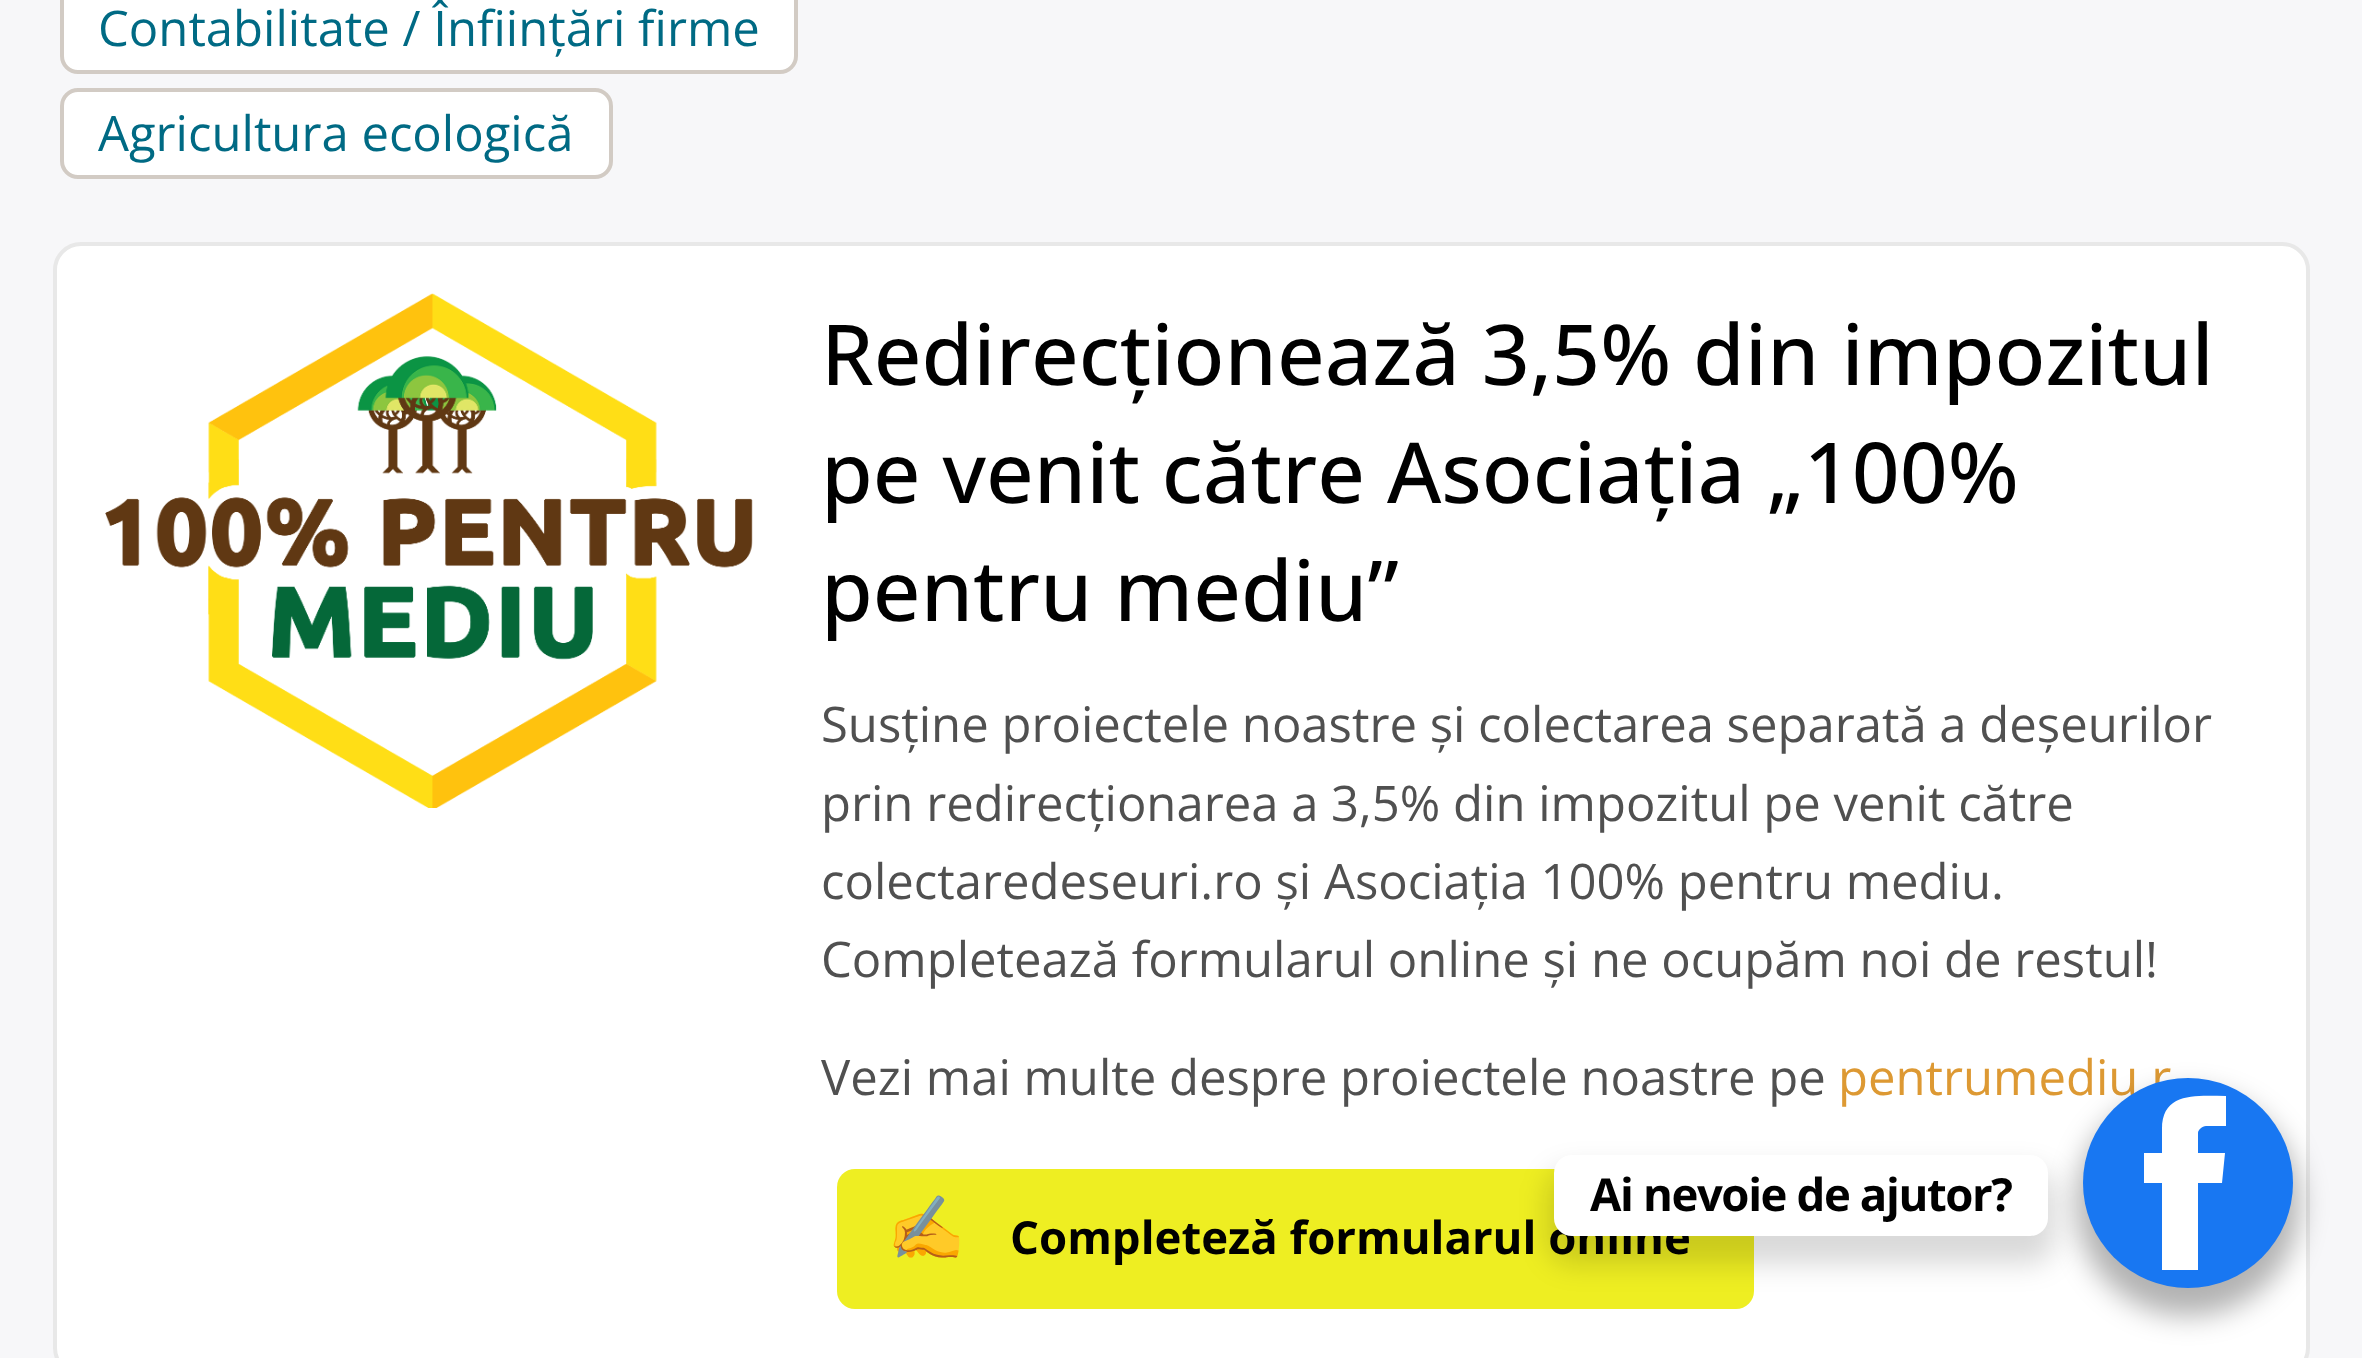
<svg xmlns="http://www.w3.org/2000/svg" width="2362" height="1358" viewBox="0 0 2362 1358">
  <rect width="100%" height="100%" fill="rgb(247,247,249)"/>
  <rect x="62" y="-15" width="734" height="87" rx="16" fill="rgb(255,255,255)" stroke="rgb(210,203,196)" stroke-width="4"/>
  <text x="98" y="46" font-family="Open Sans" font-size="49" fill="rgb(0,106,132)">Contabilitate / Înființări firme</text>
  <rect x="62" y="90" width="549" height="87" rx="16" fill="rgb(255,255,255)" stroke="rgb(210,203,196)" stroke-width="4"/>
  <text x="98" y="151" font-family="Open Sans" font-size="49" fill="rgb(0,106,132)">Agricultura ecologică</text>
  <rect x="55" y="244" width="2253" height="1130" rx="26" fill="rgb(255,255,255)" stroke="rgb(232,232,232)" stroke-width="4"/>
  <image x="105" y="293" width="648" height="515" href="pic1.png"/>
  <g font-family="Open Sans" font-size="84" font-weight="500" fill="rgb(0,0,0)">
    <text>
      <tspan x="821" y="385">Redirecționează 3,5% din impozitul</tspan>
      <tspan x="821" y="503">pe venit către Asociația „100%</tspan>
      <tspan x="821" y="621">pentru mediu”</tspan>
    </text>
  </g>
  <g font-family="Open Sans" font-size="49" fill="rgb(80,80,80)">
    <text>
      <tspan x="821" y="742">Susține proiectele noastre și colectarea separată a deșeurilor</tspan>
      <tspan x="821" y="821">prin redirecționarea a 3,5% din impozitul pe venit către</tspan>
      <tspan x="821" y="899">colectaredeseuri.ro și Asociația 100% pentru mediu.</tspan>
      <tspan x="821" y="977">Completează formularul online și ne ocupăm noi de restul!</tspan>
    </text>
    <text x="821" y="1095">Vezi mai multe despre proiectele noastre pe</text>
  </g>
  <text x="1838" y="1095" font-family="Open Sans" font-size="49" fill="rgb(221,153,51)">pentrumediu.r</text>
  <rect x="837" y="1169" width="917" height="140" rx="18" fill="rgb(238,238,34)"/>
  <text x="887" y="1250" font-family="Noto Color Emoji" font-size="63" font-weight="bold" fill="rgb(0,0,0)">✍️</text>
  <text x="1010" y="1254" font-family="Open Sans" font-size="45.5" font-weight="bold" fill="rgb(0,0,0)">Completeză formularul online</text>
  <rect x="2076" y="1092" width="224" height="224" rx="112" fill="rgba(0,0,0,0.3)" filter="blur(14px)"/>
  <circle cx="2188" cy="1183" r="105" fill="rgb(24,119,242)"/>
  <rect x="1547" y="1169" width="508" height="95" rx="25" fill="rgba(0,0,0,0.15)" filter="blur(14px)"/>
  <rect x="1554" y="1155" width="494" height="81" rx="18" fill="rgb(255,255,255)"/>
  <text x="1590" y="1211" font-family="Open Sans" font-size="45.5" font-weight="bold" letter-spacing="-1.4" fill="rgb(0,0,0)">Ai nevoie de ajutor?</text>
  <path d="M2162 1129V1153H2144V1183H2162V1270H2198V1183H2222L2225 1153H2198V1133C2198 1130 2202 1126 2206 1126H2226V1096C2198 1096 2162 1091 2162 1129Z" fill="rgb(255,255,255)"/>
</svg>
